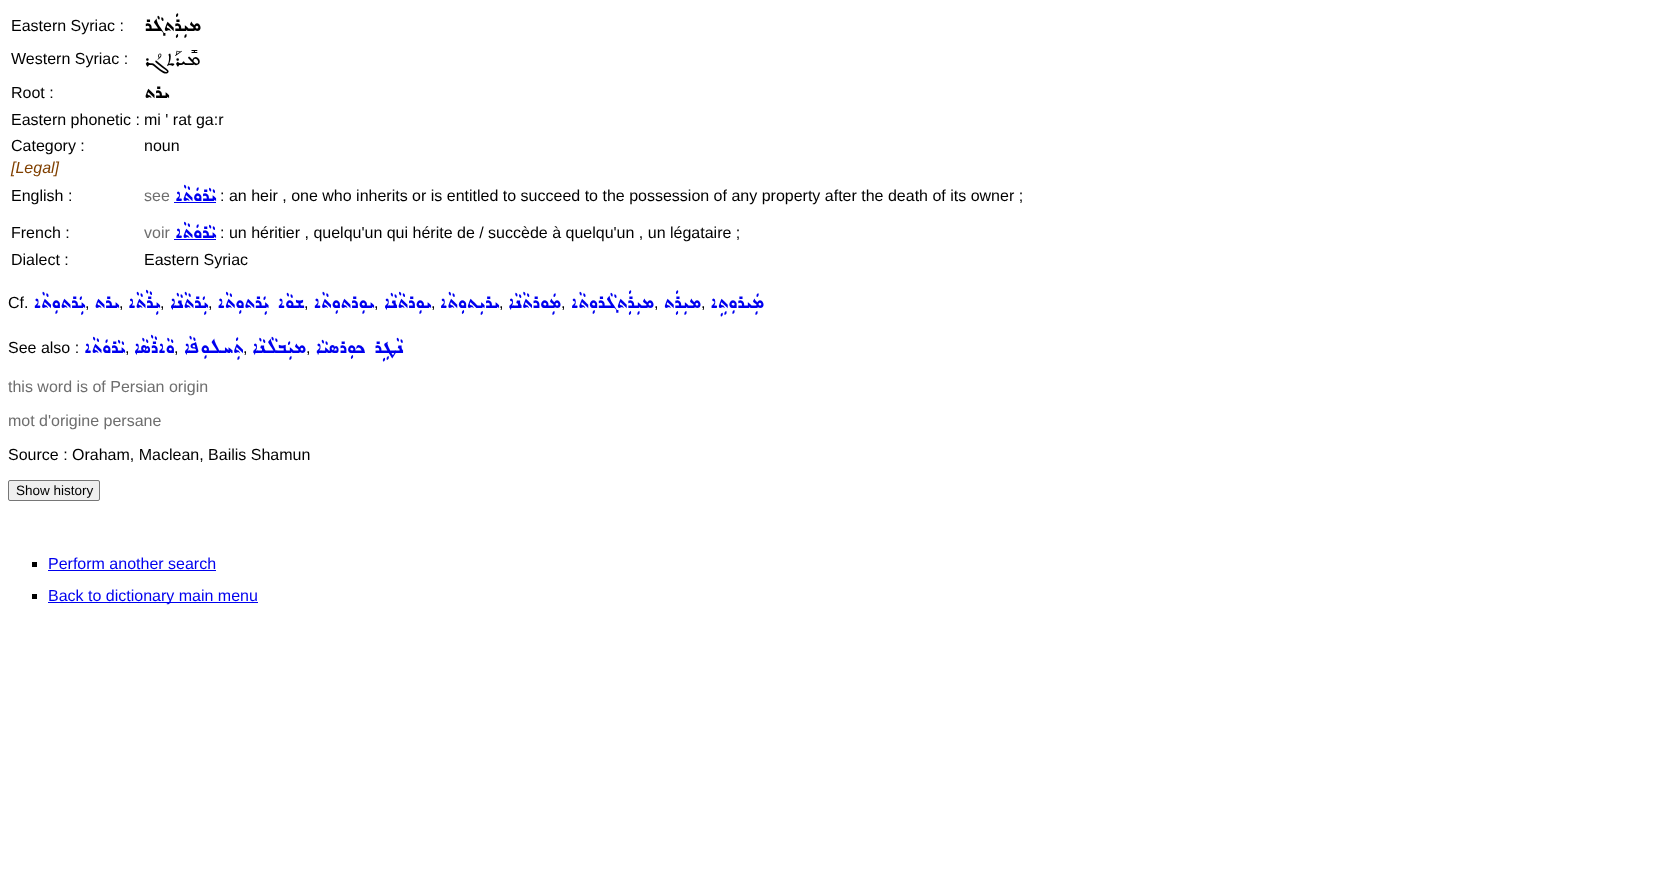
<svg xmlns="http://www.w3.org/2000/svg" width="1657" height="896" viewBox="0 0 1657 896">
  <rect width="100%" height="100%" fill="rgb(255,255,255)"/>
  <text x="11" y="31" font-family="Liberation Sans" font-size="16" fill="rgb(0,0,0)">Eastern Syriac :</text>
  <text x="201" y="31" font-family="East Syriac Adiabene" font-size="25.5" direction="rtl" fill="rgb(0,0,0)">ܡܝܼܪܲܬܓܵܪ</text>
  <text x="11" y="64" font-family="Liberation Sans" font-size="16" fill="rgb(0,0,0)">Western Syriac :</text>
  <text x="200" y="65" font-family="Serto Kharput" font-size="27" direction="rtl" fill="rgb(0,0,0)">ܡܺܝܪܰܬܓܳܪ</text>
  <text x="11" y="98" font-family="Liberation Sans" font-size="16" fill="rgb(0,0,0)">Root :</text>
  <text x="169" y="98" font-family="East Syriac Adiabene" font-size="25.5" direction="rtl" fill="rgb(0,0,0)">ܝܪܬ</text>
  <g font-family="Liberation Sans" font-size="16" fill="rgb(0,0,0)">
    <text x="11" y="125">Eastern phonetic :</text>
    <text x="144" y="125">mi ' rat ga:r</text>
    <text x="11" y="151">Category :</text>
    <text x="144" y="151">noun</text>
  </g>
  <text x="11" y="173" font-family="Liberation Sans" font-size="16" font-style="italic" fill="rgb(128,64,0)">[Legal]</text>
  <text x="11" y="201" font-family="Liberation Sans" font-size="16" fill="rgb(0,0,0)">English :</text>
  <text x="144" y="201" font-family="Liberation Sans" font-size="16" fill="rgb(110,110,110)">see</text>
  <rect x="174" y="202" width="42" height="1" fill="rgb(0,0,238)"/>
  <text x="216" y="201" font-family="East Syriac Adiabene" font-size="25.5" direction="rtl" fill="rgb(0,0,238)">ܝܵܪܘܿܬܵܐ</text>
  <g font-family="Liberation Sans" font-size="16" fill="rgb(0,0,0)">
    <text x="220" y="201">: an heir , one who inherits or is entitled to succeed to the possession of any property after the death of its owner ;</text>
    <text x="11" y="238">French :</text>
  </g>
  <text x="144" y="238" font-family="Liberation Sans" font-size="16" fill="rgb(110,110,110)">voir</text>
  <rect x="174" y="239" width="42" height="1" fill="rgb(0,0,238)"/>
  <text x="216" y="238" font-family="East Syriac Adiabene" font-size="25.5" direction="rtl" fill="rgb(0,0,238)">ܝܵܪܘܿܬܵܐ</text>
  <g font-family="Liberation Sans" font-size="16" fill="rgb(0,0,0)">
    <text x="220" y="238">: un héritier , quelqu'un qui hérite de / succède à quelqu'un , un légataire ;</text>
    <text x="11" y="265">Dialect :</text>
    <text x="144" y="265">Eastern Syriac</text>
    <text x="8" y="308">Cf.</text>
  </g>
  <text x="85" y="308" font-family="East Syriac Adiabene" font-size="25.5" direction="rtl" fill="rgb(0,0,238)">ܝܲܪܬܘܼܬܵܐ</text>
  <text x="85" y="308" font-family="Liberation Sans" font-size="16" fill="rgb(0,0,0)">,</text>
  <text x="119" y="308" font-family="East Syriac Adiabene" font-size="25.5" direction="rtl" fill="rgb(0,0,238)">ܝܪܬ</text>
  <text x="119" y="308" font-family="Liberation Sans" font-size="16" fill="rgb(0,0,0)">,</text>
  <text x="160" y="308" font-family="East Syriac Adiabene" font-size="25.5" direction="rtl" fill="rgb(0,0,238)">ܝܼܪܵܬܵܐ</text>
  <text x="160" y="308" font-family="Liberation Sans" font-size="16" fill="rgb(0,0,0)">,</text>
  <text x="208" y="308" font-family="East Syriac Adiabene" font-size="25.5" direction="rtl" fill="rgb(0,0,238)">ܝܲܪܬܵܢܵܐ</text>
  <text x="208" y="308" font-family="Liberation Sans" font-size="16" fill="rgb(0,0,0)">,</text>
  <text x="304" y="308" font-family="East Syriac Adiabene" font-size="25.5" direction="rtl" fill="rgb(0,0,238)">ܫܘܵܐ ܝܲܪܬܘܼܬܵܐ</text>
  <text x="304" y="308" font-family="Liberation Sans" font-size="16" fill="rgb(0,0,0)">,</text>
  <text x="374" y="308" font-family="East Syriac Adiabene" font-size="25.5" direction="rtl" fill="rgb(0,0,238)">ܝܘܼܪܬܘܼܬܵܐ</text>
  <text x="374" y="308" font-family="Liberation Sans" font-size="16" fill="rgb(0,0,0)">,</text>
  <text x="431" y="308" font-family="East Syriac Adiabene" font-size="25.5" direction="rtl" fill="rgb(0,0,238)">ܝܘܼܪܬܵܢܵܐ</text>
  <text x="431" y="308" font-family="Liberation Sans" font-size="16" fill="rgb(0,0,0)">,</text>
  <text x="499" y="308" font-family="East Syriac Adiabene" font-size="25.5" direction="rtl" fill="rgb(0,0,238)">ܝܪܝܼܬܘܼܬܵܐ</text>
  <text x="499" y="308" font-family="Liberation Sans" font-size="16" fill="rgb(0,0,0)">,</text>
  <text x="561" y="308" font-family="East Syriac Adiabene" font-size="25.5" direction="rtl" fill="rgb(0,0,238)">ܡܲܘܪܬܵܢܵܐ</text>
  <text x="561" y="308" font-family="Liberation Sans" font-size="16" fill="rgb(0,0,0)">,</text>
  <text x="654" y="308" font-family="East Syriac Adiabene" font-size="25.5" direction="rtl" fill="rgb(0,0,238)">ܡܝܼܪܲܬܓܵܪܘܼܬܵܐ</text>
  <text x="654" y="308" font-family="Liberation Sans" font-size="16" fill="rgb(0,0,0)">,</text>
  <text x="701" y="308" font-family="East Syriac Adiabene" font-size="25.5" direction="rtl" fill="rgb(0,0,238)">ܡܝܼܪܲܬ</text>
  <text x="701" y="308" font-family="Liberation Sans" font-size="16" fill="rgb(0,0,0)">,</text>
  <text x="764" y="308" font-family="East Syriac Adiabene" font-size="25.5" direction="rtl" fill="rgb(0,0,238)">ܡܲܝܪܘܼܬܹܐ</text>
  <text x="8" y="353" font-family="Liberation Sans" font-size="16" fill="rgb(0,0,0)">See also :</text>
  <text x="125" y="353" font-family="East Syriac Adiabene" font-size="25.5" direction="rtl" fill="rgb(0,0,238)">ܝܵܪܘܿܬܵܐ</text>
  <text x="125" y="353" font-family="Liberation Sans" font-size="16" fill="rgb(0,0,0)">,</text>
  <text x="174" y="353" font-family="East Syriac Adiabene" font-size="25.5" direction="rtl" fill="rgb(0,0,238)">ܘܵܐܪܵܣܵܐ</text>
  <text x="174" y="353" font-family="Liberation Sans" font-size="16" fill="rgb(0,0,0)">,</text>
  <text x="243" y="353" font-family="East Syriac Adiabene" font-size="25.5" direction="rtl" fill="rgb(0,0,238)">ܬܲܚܠܘܼܦܵܐ</text>
  <text x="243" y="353" font-family="Liberation Sans" font-size="16" fill="rgb(0,0,0)">,</text>
  <text x="306" y="353" font-family="East Syriac Adiabene" font-size="25.5" direction="rtl" fill="rgb(0,0,238)">ܡܝܲܒܠܵܢܵܐ</text>
  <text x="306" y="353" font-family="Liberation Sans" font-size="16" fill="rgb(0,0,0)">,</text>
  <text x="403" y="353" font-family="East Syriac Adiabene" font-size="25.5" direction="rtl" fill="rgb(0,0,238)">ܢܵܛܹܪ ܟܘܼܪܣܝܵܐ</text>
  <g font-family="Liberation Sans" font-size="16" fill="rgb(110,110,110)">
    <text x="8" y="392">this word is of Persian origin</text>
    <text x="8" y="426">mot d'origine persane</text>
  </g>
  <text x="8" y="460" font-family="Liberation Sans" font-size="16" fill="rgb(0,0,0)">Source : Oraham, Maclean, Bailis Shamun</text>
  <rect x="8.5" y="480.5" width="91" height="20" rx="1.5" fill="rgb(239,239,239)" stroke="rgb(118,118,118)"/>
  <text x="16" y="495" font-family="Liberation Sans" font-size="13.5" fill="rgb(0,0,0)">Show history</text>
  <rect x="32" y="562" width="5" height="5" fill="rgb(0,0,0)"/>
  <text x="48" y="569" font-family="Liberation Sans" font-size="16" fill="rgb(0,0,238)">Perform another search</text>
  <rect x="48" y="570" width="168" height="1" fill="rgb(0,0,238)"/>
  <rect x="32" y="594" width="5" height="5" fill="rgb(0,0,0)"/>
  <rect x="48" y="602" width="210" height="1" fill="rgb(0,0,238)"/>
  <text x="48" y="601" font-family="Liberation Sans" font-size="16" fill="rgb(0,0,238)">Back to dictionary main menu</text>
</svg>
